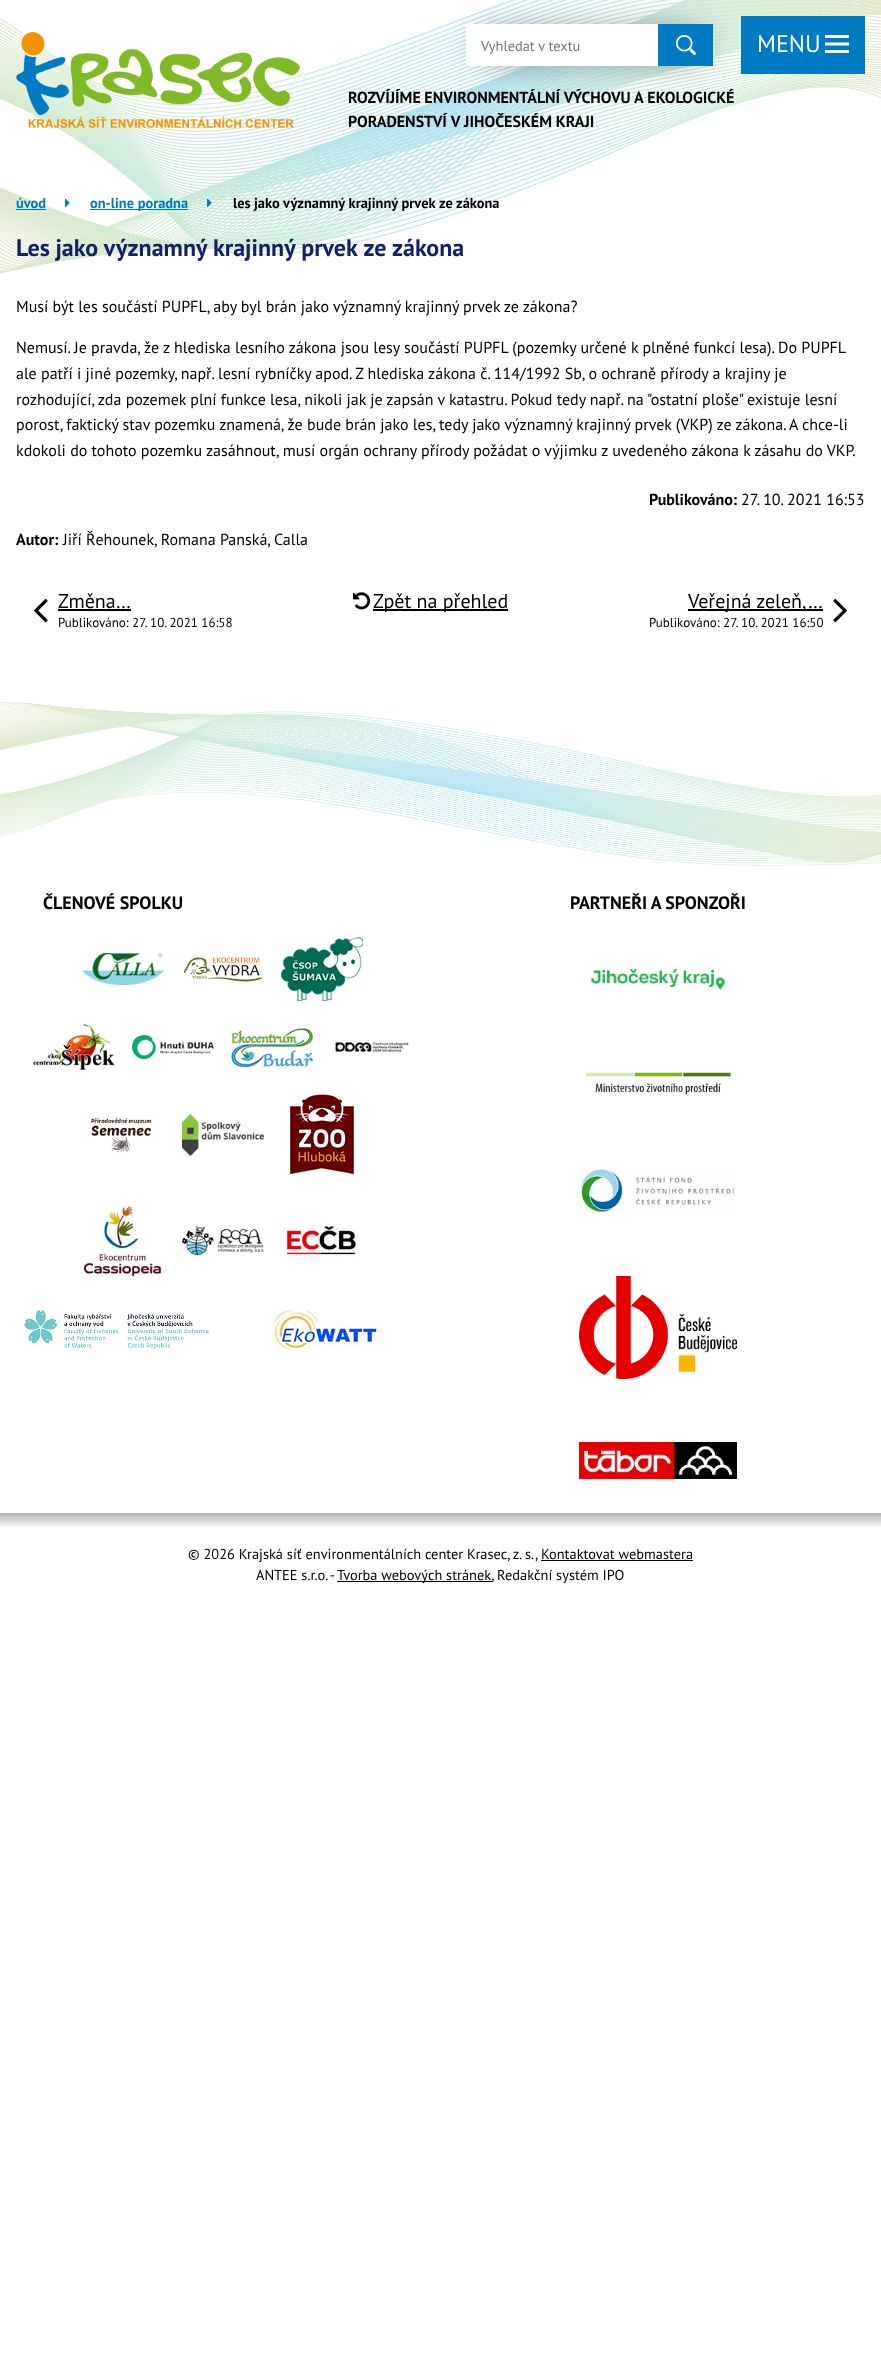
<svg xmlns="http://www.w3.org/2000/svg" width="881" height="2370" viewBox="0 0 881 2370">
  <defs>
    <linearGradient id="g1" gradientUnits="userSpaceOnUse" x1="441" y1="1513" x2="441" y2="1528"><stop offset="0" stop-color="rgb(179,179,179)"/><stop offset="1" stop-color="rgb(255,255,255)"/></linearGradient>
  </defs>
  <rect width="100%" height="100%" fill="rgb(255,255,255)"/>
  <image x="0" y="0" width="881" height="274" href="pic1.png"/>
  <image x="16" y="32" width="284" height="96" href="pic2.png"/>
  <rect x="482" y="40" width="217" height="12" fill="rgb(0,0,0)" filter="blur(17.5px)"/>
  <rect x="466" y="24" width="192" height="42" fill="rgb(255,255,255)"/>
  <text x="481" y="51" font-family="PT Sans" font-size="14.4" fill="rgb(117,117,117)">Vyhledat v textu</text>
  <rect x="658" y="24" width="55" height="42" fill="rgb(0,122,194)"/>
  <image x="676" y="35" width="20" height="20" href="pic3.png"/>
  <g font-family="PT Sans" font-size="16" font-weight="bold" fill="rgb(0,0,0)">
    <text>
      <tspan x="348" y="103" word-spacing="-0.5">ROZVÍJÍME ENVIRONMENTÁLNÍ VÝCHOVU A EKOLOGICKÉ</tspan>
      <tspan x="348" y="127" word-spacing="-0.25">PORADENSTVÍ V JIHOČESKÉM KRAJI</tspan>
    </text>
  </g>
  <rect x="741" y="16" width="124" height="58" fill="rgb(0,122,194)"/>
  <text x="757" y="52" font-family="PT Sans" font-size="24" fill="rgb(255,255,255)">MENU</text>
  <image x="825" y="35" width="24" height="18" href="pic4.png"/>
  <text x="16" y="208" font-family="PT Sans" font-size="14.4" font-weight="bold" fill="rgb(0,122,194)">úvod</text>
  <rect x="16" y="209" width="30" height="1" fill="rgb(0,122,194)"/>
  <image x="65" y="198" width="5" height="9" href="pic5.png"/>
  <rect x="90" y="209" width="98" height="1" fill="rgb(0,122,194)"/>
  <text x="90" y="208" font-family="PT Sans" font-size="14.4" font-weight="bold" fill="rgb(0,122,194)">on-line poradna</text>
  <image x="207" y="198" width="5" height="9" href="pic6.png"/>
  <text x="233" y="208" word-spacing="-0.25" font-family="PT Sans" font-size="14.4" font-weight="bold" fill="rgb(0,0,0)">les jako významný krajinný prvek ze zákona</text>
  <text x="16" y="256" word-spacing="-0.5" font-family="PT Sans" font-size="24" font-weight="bold" fill="rgb(17,33,106)">Les jako významný krajinný prvek ze zákona</text>
  <g font-family="PT Sans" font-size="16" fill="rgb(0,0,0)">
    <text x="16" y="312">Musí být les součástí PUPFL, aby byl brán jako významný krajinný prvek ze zákona?</text>
    <text>
      <tspan x="16" y="353">Nemusí. Je pravda, že z hlediska lesního zákona jsou lesy součástí PUPFL (pozemky určené k plněné funkcí lesa). Do PUPFL</tspan>
      <tspan x="16" y="379">ale patří i jiné pozemky, např. lesní rybníčky apod. Z hlediska zákona č. 114/1992 Sb, o ochraně přírody a krajiny je</tspan>
      <tspan x="16" y="405">rozhodující, zda pozemek plní funkce lesa, nikoli jak je zapsán v katastru. Pokud tedy např. na "ostatní ploše" existuje lesní</tspan>
      <tspan x="16" y="430">porost, faktický stav pozemku znamená, že bude brán jako les, tedy jako významný krajinný prvek (VKP) ze zákona. A chce-li</tspan>
      <tspan x="16" y="456">kdokoli do tohoto pozemku zasáhnout, musí orgán ochrany přírody požádat o výjimku z uvedeného zákona k zásahu do VKP.</tspan>
    </text>
  </g>
  <text x="649" y="505" font-family="PT Sans" font-size="16" font-weight="bold" fill="rgb(0,0,0)">Publikováno:</text>
  <text x="741" y="505" font-family="PT Sans" font-size="16" fill="rgb(0,0,0)">27. 10. 2021 16:53</text>
  <text x="16" y="545" font-family="PT Sans" font-size="16" font-weight="bold" fill="rgb(0,0,0)">Autor:</text>
  <text x="63" y="545" font-family="PT Sans" font-size="16" fill="rgb(0,0,0)">Jiří Řehounek, Romana Panská, Calla</text>
  <image x="34" y="599" width="14" height="24" href="pic7.png"/>
  <text x="58" y="608" font-family="PT Sans" font-size="20" fill="rgb(0,0,0)">Změna…</text>
  <rect x="58" y="609" width="73" height="2" fill="rgb(0,0,0)"/>
  <text x="58" y="627" font-family="PT Sans" font-size="13" fill="rgb(0,0,0)">Publikováno: 27. 10. 2021 16:58</text>
  <image x="353" y="592" width="18" height="18" href="pic8.png"/>
  <rect x="373" y="609" width="135" height="2" fill="rgb(0,0,0)"/>
  <text x="373" y="608" font-family="PT Sans" font-size="20" fill="rgb(0,0,0)">Zpět na přehled</text>
  <rect x="688" y="609" width="135" height="2" fill="rgb(0,0,0)"/>
  <text x="688" y="608" font-family="PT Sans" font-size="20" fill="rgb(0,0,0)">Veřejná zeleň,…</text>
  <text x="649" y="627" font-family="PT Sans" font-size="13" fill="rgb(0,0,0)">Publikováno: 27. 10. 2021 16:50</text>
  <image x="833" y="599" width="14" height="24" href="pic9.png"/>
  <image x="0" y="702" width="881" height="164" href="pic10.png"/>
  <text x="43" y="909" font-family="PT Sans" font-size="18" font-weight="bold" fill="rgb(0,0,0)">ČLENOVÉ SPOLKU</text>
  <image x="82" y="953" width="82" height="32" href="pic11.png"/>
  <image x="184" y="957" width="79" height="26" href="pic12.png"/>
  <image x="281" y="937" width="82" height="64" href="pic13.png"/>
  <image x="33" y="1024" width="82" height="46" href="pic14.png"/>
  <image x="132" y="1035" width="82" height="24" href="pic15.png"/>
  <image x="231" y="1028" width="82" height="39" href="pic16.png"/>
  <image x="335" y="1042" width="74" height="10" href="pic17.png"/>
  <image x="91" y="1118" width="61" height="35" href="pic18.png"/>
  <image x="182" y="1114" width="82" height="42" href="pic19.png"/>
  <image x="289" y="1094" width="65" height="81" href="pic20.png"/>
  <image x="82" y="1199" width="82" height="81" href="pic21.png"/>
  <image x="182" y="1226" width="82" height="29" href="pic22.png"/>
  <image x="285" y="1224" width="73" height="33" href="pic23.png"/>
  <image x="24" y="1310" width="185" height="39" href="pic24.png"/>
  <image x="266" y="1304" width="113" height="46" href="pic25.png"/>
  <text x="570" y="909" word-spacing="-1" font-family="PT Sans" font-size="18" font-weight="bold" fill="rgb(0,0,0)">PARTNEŘI A SPONZOŘI</text>
  <image x="590" y="969" width="136" height="21" href="pic26.png"/>
  <image x="585" y="1072" width="147" height="23" href="pic27.png"/>
  <image x="579" y="1168" width="155" height="45" href="pic28.png"/>
  <image x="579" y="1276" width="158" height="103" href="pic29.png"/>
  <image x="579" y="1442" width="158" height="37" href="pic30.png"/>
  <rect x="0" y="1513" width="881" height="15" fill="url(#g1)"/>
  <text x="188" y="1559" font-family="PT Sans" font-size="14.4" fill="rgb(0,0,0)">© 2026 Krajská síť environmentálních center Krasec, z. s., Kontaktovat webmastera</text>
  <rect x="541" y="1560" width="152" height="1" fill="rgb(0,0,0)"/>
  <text x="256" y="1580" font-family="PT Sans" font-size="14.4" fill="rgb(0,0,0)">ANTEE s.r.o. -</text>
  <rect x="337" y="1581" width="155" height="1" fill="rgb(0,0,0)"/>
  <text x="337" y="1580" font-family="PT Sans" font-size="14.4" fill="rgb(0,0,0)">Tvorba webových stránek, Redakční systém IPO</text>
</svg>
